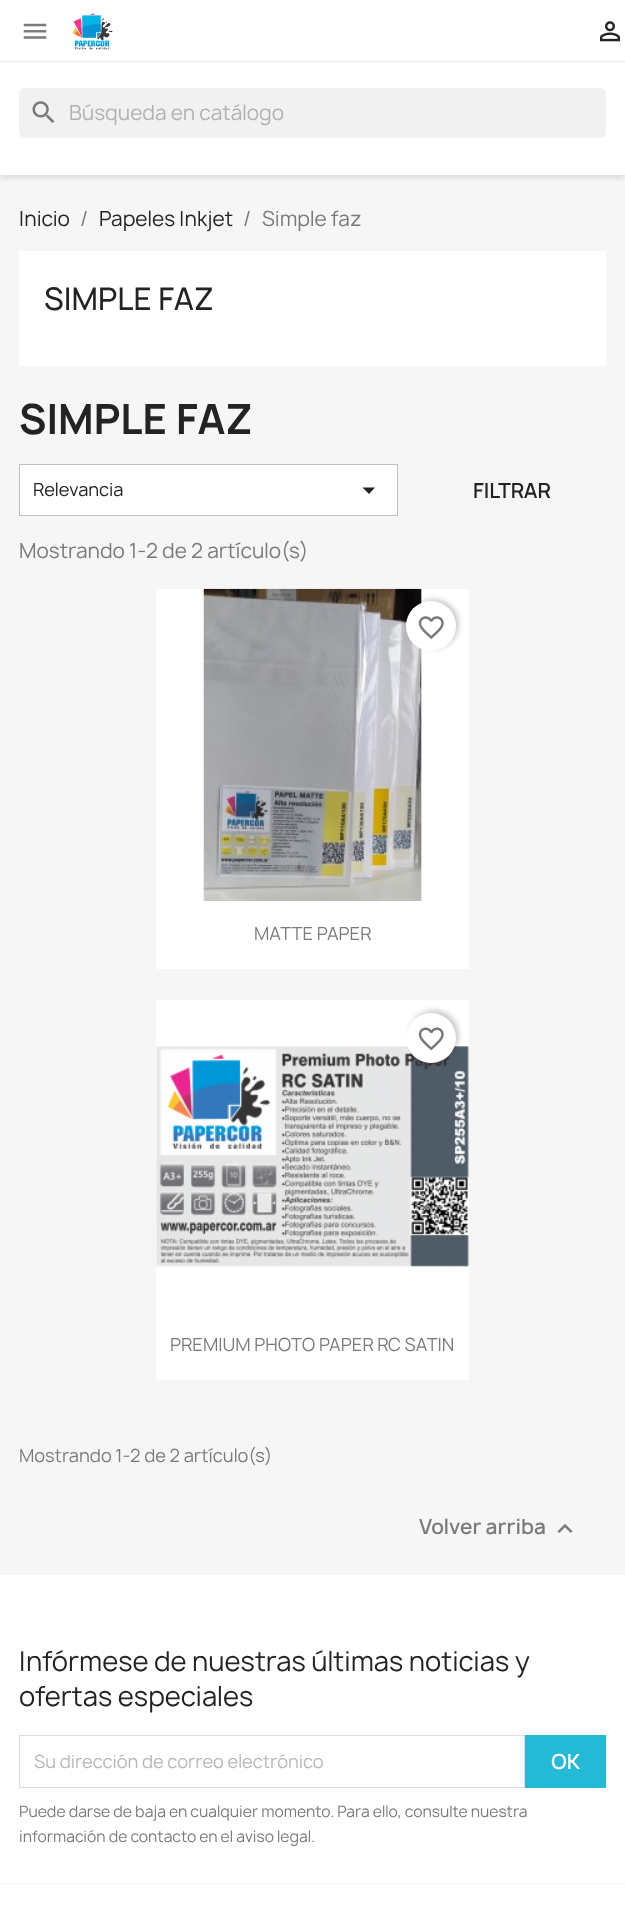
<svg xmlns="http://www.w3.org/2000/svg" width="625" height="1930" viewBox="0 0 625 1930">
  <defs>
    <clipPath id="clip1"><rect x="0" y="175" width="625" height="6"/></clipPath>
  </defs>
  <rect width="100%" height="100%" fill="rgb(255,255,255)"/>
  <rect x="0" y="175" width="625" height="1400" fill="rgb(246,246,246)"/>
  <g clip-path="url(#clip1)">
    <rect x="0" y="3" width="625" height="175" fill="rgba(0,0,0,0.11)" filter="blur(3px)"/>
  </g>
  <rect x="0" y="60" width="625" height="3" fill="rgb(246,246,246)"/>
  <image x="23" y="23" width="24" height="16" href="pic1.png"/>
  <image x="72" y="13" width="41" height="37" href="pic2.png"/>
  <image x="600" y="21" width="20" height="21" href="pic3.png"/>
  <rect x="19" y="88" width="587" height="50" rx="6" fill="rgb(241,241,241)"/>
  <image x="32" y="101" width="23" height="22" href="pic4.png"/>
  <text x="69" y="120" font-family="Manrope" font-size="20" fill="rgb(177,177,177)">Búsqueda en catálogo</text>
  <text x="19" y="226" font-family="Manrope" font-size="20" fill="rgb(35,35,35)">Inicio</text>
  <text x="80" y="226" font-family="Manrope" font-size="20" fill="rgb(122,122,122)">/</text>
  <text x="99" y="226" font-family="Manrope" font-size="20" fill="rgb(35,35,35)">Papeles Inkjet</text>
  <g font-family="Manrope" font-size="20" fill="rgb(122,122,122)">
    <text x="243" y="226">/</text>
    <text x="262" y="226">Simple faz</text>
  </g>
  <rect x="19" y="251" width="587" height="115" fill="rgb(255,255,255)"/>
  <text x="44" y="310" font-family="Manrope" font-size="30" font-weight="500" fill="rgb(35,35,35)">SIMPLE FAZ</text>
  <text x="19" y="434" font-family="Manrope" font-size="40" font-weight="bold" fill="rgb(35,35,35)">SIMPLE FAZ</text>
  <rect x="19.5" y="464.5" width="378" height="51" fill="rgb(255,255,255)" stroke="rgb(191,191,191)"/>
  <text x="33" y="496" font-family="Manrope" font-size="17.5" fill="rgb(35,35,35)">Relevancia</text>
  <path d="M362.5 487.5H375L369 494Z" fill="rgb(35,35,35)"/>
  <text x="473" y="498" font-family="Manrope" font-size="20" font-weight="600" fill="rgb(35,35,35)">FILTRAR</text>
  <text x="19" y="558" font-family="Manrope" font-size="20" fill="rgb(122,122,122)">Mostrando 1-2 de 2 artículo(s)</text>
  <rect x="156" y="589" width="313" height="380" fill="rgb(255,255,255)"/>
  <image x="200" y="588" width="225" height="313" href="pic5.png"/>
  <rect x="409" y="599" width="50" height="50" rx="25" fill="rgba(0,0,0,0.2)" filter="blur(2.5px)"/>
  <circle cx="431" cy="626" r="25" fill="rgb(255,255,255)"/>
  <image x="418" y="616" width="26" height="23" href="pic6.png"/>
  <text x="254" y="940" font-family="Manrope" font-size="17.5" fill="rgb(122,122,122)">MATTE PAPER</text>
  <rect x="156" y="1000" width="313" height="380" fill="rgb(255,255,255)"/>
  <image x="156" y="1046" width="313" height="221" href="pic8.png"/>
  <rect x="409" y="1010" width="50" height="50" rx="25" fill="rgba(0,0,0,0.2)" filter="blur(2.5px)"/>
  <circle cx="431" cy="1038" r="25" fill="rgb(255,255,255)"/>
  <image x="418" y="1027" width="26" height="24" href="pic7.png"/>
  <g font-family="Manrope" font-size="17.5" fill="rgb(122,122,122)">
    <text x="170" y="1351">PREMIUM PHOTO PAPER RC SATIN</text>
    <text x="19" y="1462">Mostrando 1-2 de 2 artículo(s)</text>
  </g>
  <text x="419" y="1534" font-family="Manrope" font-size="20" font-weight="600" fill="rgb(122,122,122)">Volver arriba</text>
  <image x="557" y="1524" width="16" height="9" href="pic9.png"/>
  <rect x="0" y="1883" width="625" height="1" fill="rgb(246,246,246)"/>
  <g font-family="Manrope" font-size="26.25" fill="rgb(35,35,35)">
    <text>
      <tspan x="19" y="1671">Infórmese de nuestras últimas noticias y</tspan>
      <tspan x="19" y="1706">ofertas especiales</tspan>
    </text>
  </g>
  <rect x="19.5" y="1735.5" width="505" height="52" fill="none" stroke="rgb(221,221,221)"/>
  <text x="34" y="1768" font-family="Manrope" font-size="17.5" fill="rgb(183,183,183)">Su dirección de correo electrónico</text>
  <rect x="525" y="1735" width="81" height="53" fill="rgb(36,185,215)"/>
  <text x="551" y="1769" font-family="Manrope" font-size="20" font-weight="600" fill="rgb(255,255,255)">OK</text>
  <g font-family="Manrope" font-size="15" fill="rgb(122,122,122)">
    <text>
      <tspan x="19" y="1817">Puede darse de baja en cualquier momento. Para ello, consulte nuestra</tspan>
      <tspan x="19" y="1842">información de contacto en el aviso legal.</tspan>
    </text>
  </g>
</svg>
